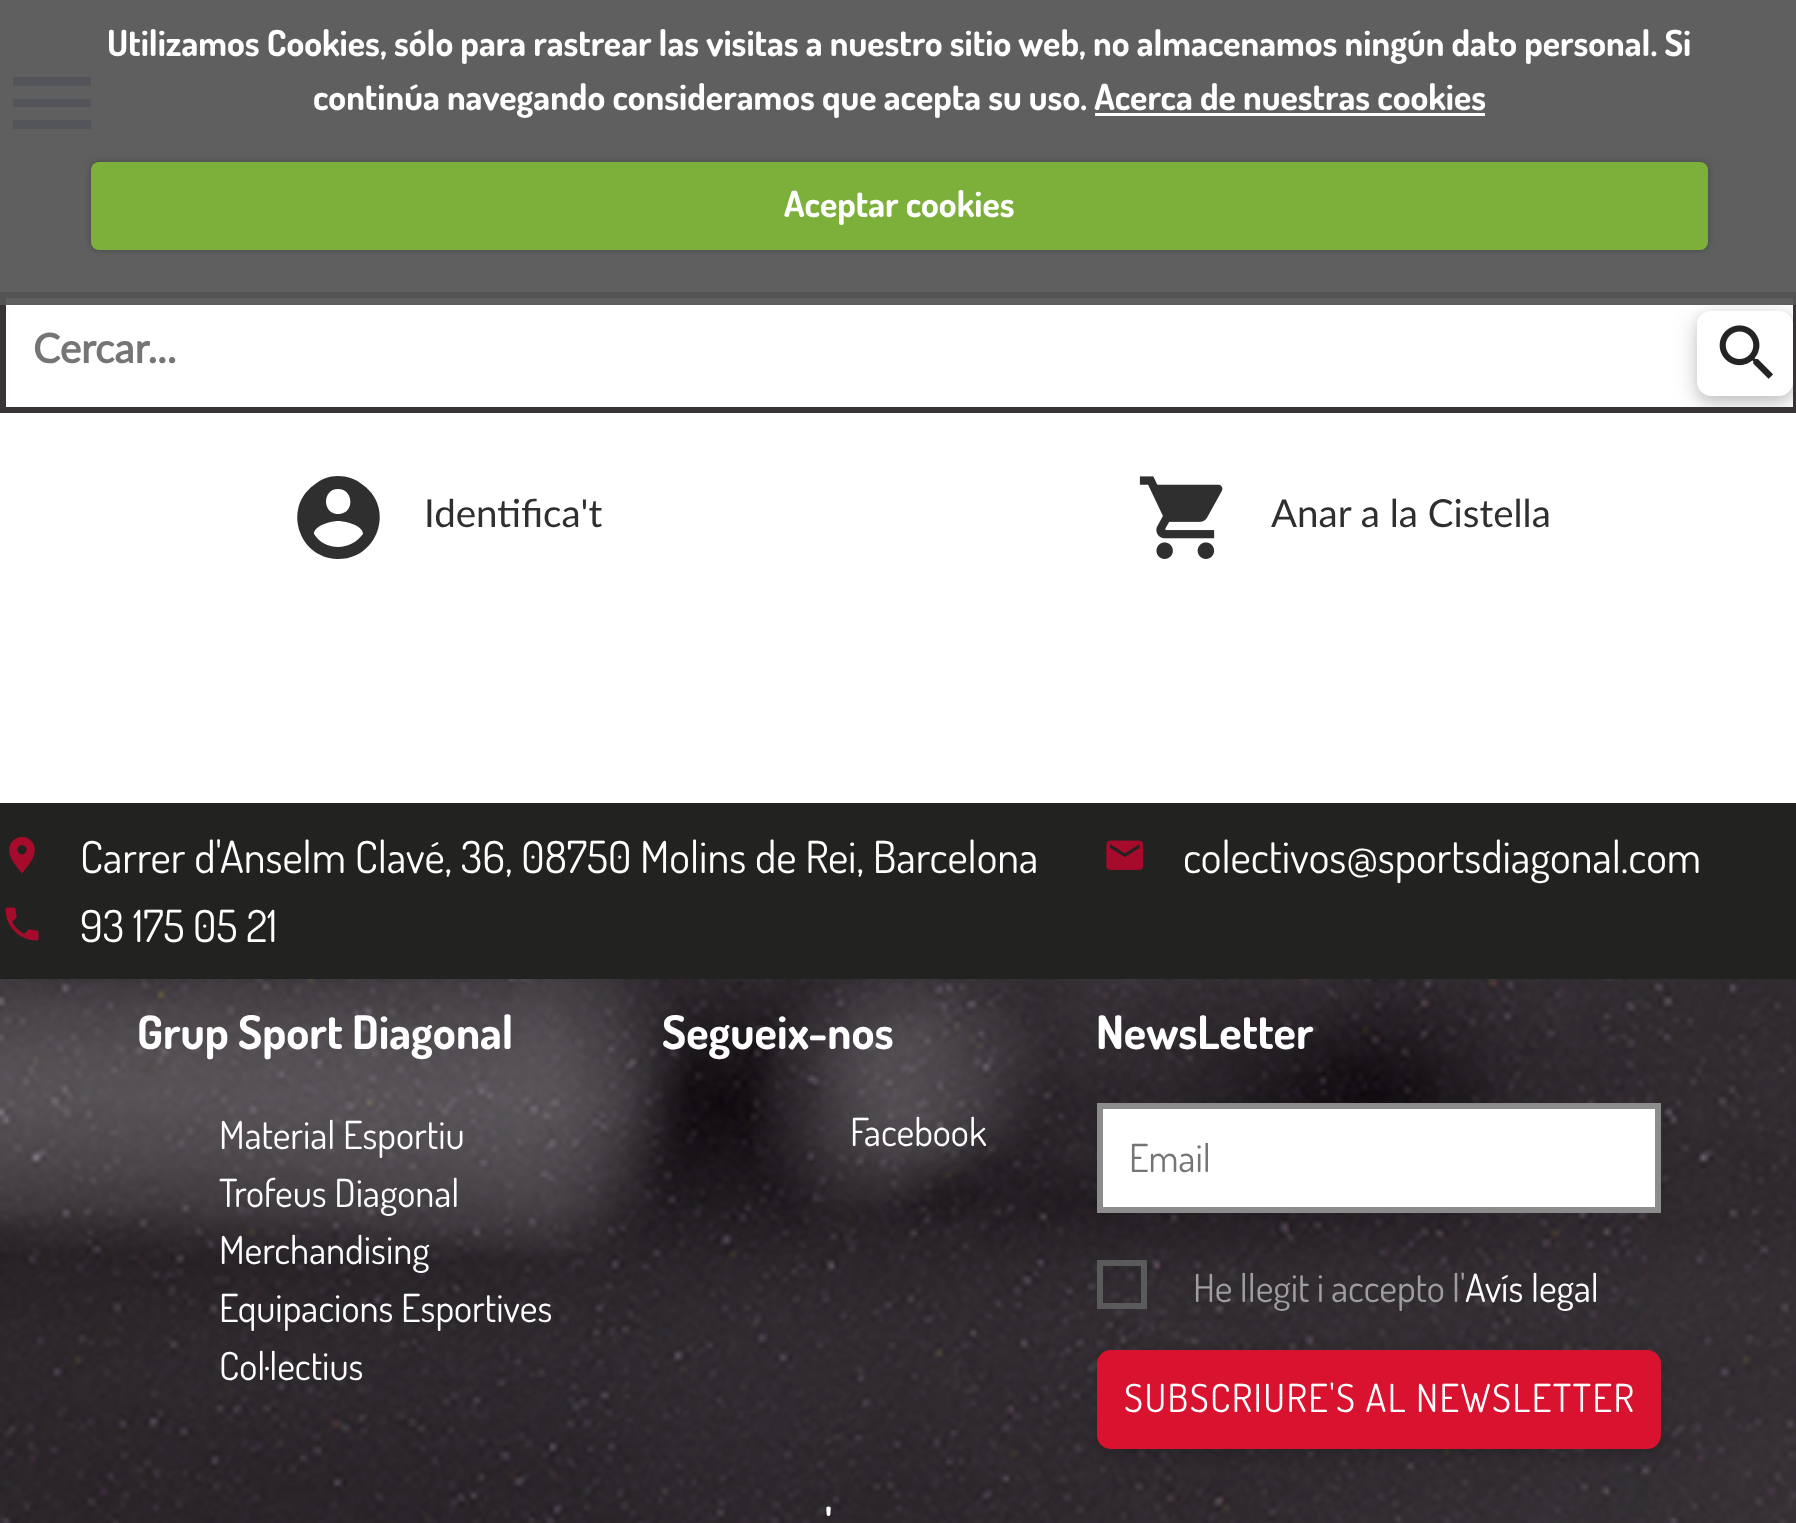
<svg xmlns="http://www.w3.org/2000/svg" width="1796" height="1523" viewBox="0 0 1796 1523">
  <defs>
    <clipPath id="clip1"><rect x="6" y="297" width="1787" height="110"/></clipPath>
    <clipPath id="clip2"><path d="M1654 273H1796V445H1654ZM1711 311H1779C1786.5 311 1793 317.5 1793 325V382C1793 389.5 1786.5 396 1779 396H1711C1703.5 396 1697 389.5 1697 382V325C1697 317.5 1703.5 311 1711 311Z" clip-rule="evenodd"/></clipPath>
    <clipPath id="clip3"><path d="M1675 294H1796V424H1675ZM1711 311H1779C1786.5 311 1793 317.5 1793 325V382C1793 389.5 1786.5 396 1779 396H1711C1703.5 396 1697 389.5 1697 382V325C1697 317.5 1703.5 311 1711 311Z" clip-rule="evenodd"/></clipPath>
  </defs>
  <rect width="100%" height="100%" fill="rgb(255,255,255)"/>
  <path d="M13 129H91V120H13ZM13 107H91V99H13ZM13 77V86H91V77Z" fill="rgb(29,60,166)"/>
  <rect x="3" y="295" width="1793" height="115" fill="none" stroke="rgb(56,52,53)" stroke-width="6"/>
  <g clip-path="url(#clip1)">
    <g clip-path="url(#clip2)">
      <rect x="1697" y="316" width="96" height="86" rx="14" fill="rgba(0,0,0,0.12)" filter="blur(14px)"/>
    </g>
  </g>
  <g clip-path="url(#clip1)">
    <g clip-path="url(#clip3)">
      <rect x="1697" y="316" width="96" height="86" rx="14" fill="rgba(0,0,0,0.16)" filter="blur(7px)"/>
    </g>
  </g>
  <rect x="0" y="0" width="1796" height="305" fill="rgba(86,86,86,0.95)"/>
  <g font-family="Dosis" font-size="35.75" font-weight="bold" fill="rgb(255,255,255)">
    <text x="107" y="56">Utilizamos Cookies, sólo para rastrear las visitas a nuestro sitio web, no almacenamos ningún dato personal. Si</text>
    <text x="313" y="110">continúa navegando consideramos que acepta su uso. Acerca de nuestras cookies</text>
  </g>
  <rect x="1095" y="113" width="390" height="3" fill="rgb(255,255,255)"/>
  <rect x="91" y="162" width="1617" height="88" rx="8" fill="rgba(0,0,0,0.25)" filter="blur(3px)"/>
  <rect x="91" y="162" width="1617" height="88" rx="8" fill="rgb(125,175,59)"/>
  <text x="784" y="217" font-family="Dosis" font-size="35.75" font-weight="bold" fill="rgb(255,255,255)">Aceptar cookies</text>
  <text x="33" y="363" font-family="Lato" font-size="40.5" font-weight="bold" fill="rgb(117,117,117)">Cercar...</text>
  <image x="1719" y="325" width="54" height="54" href="pic1.png"/>
  <path d="M338 476C329 476 321 479 314 485C282 508 299 559 338 559C378 559 395 508 363 485C356 479 347 476 338 476ZM338 489C354 489 355 514 338 514C322 514 322 489 338 489ZM338 547C328 547 319 542 314 534C314 525 332 521 338 521C345 521 363 525 363 534C357 542 348 547 338 547Z" fill="rgb(47,47,47)"/>
  <text x="424" y="527" font-family="Lato" font-size="38.5" fill="rgb(47,47,47)">Identifica't</text>
  <image x="1139" y="476" width="84" height="83" href="pic2.png"/>
  <text x="1271" y="527" font-family="Lato" font-size="38.5" fill="rgb(47,47,47)">Anar a la Cistella</text>
  <rect x="0" y="803" width="1796" height="176" fill="rgb(34,34,32)"/>
  <image x="9" y="836" width="26" height="38" href="pic3.png"/>
  <text x="80" y="873" font-family="Dosis" font-size="44" fill="rgb(255,255,255)">Carrer d'Anselm Clavé, 36, 08750 Molins de Rei, Barcelona</text>
  <image x="1106" y="840" width="38" height="30" href="pic4.png"/>
  <text x="1183" y="873" font-family="Dosis" font-size="44" fill="rgb(255,255,255)">colectivos@sportsdiagonal.com</text>
  <image x="5" y="907" width="34" height="34" href="pic5.png"/>
  <text x="80" y="942" font-family="Dosis" font-size="44" fill="rgb(255,255,255)">93 175 05 21</text>
  <image x="0" y="979" width="1796" height="544" href="pic6.png"/>
  <text x="137" y="1049" font-family="Dosis" font-size="46.25" font-weight="bold" fill="rgb(255,255,255)">Grup Sport Diagonal</text>
  <g font-family="Dosis" font-size="38.5" fill="rgb(255,255,255)">
    <text>
      <tspan x="219" y="1149">Material Esportiu</tspan>
      <tspan x="219" y="1207">Trofeus Diagonal</tspan>
      <tspan x="219" y="1264">Merchandising</tspan>
      <tspan x="219" y="1322">Equipacions Esportives</tspan>
      <tspan x="219" y="1380">Col·lectius</tspan>
    </text>
  </g>
  <text x="662" y="1049" font-family="Dosis" font-size="46.25" font-weight="bold" fill="rgb(255,255,255)">Segueix-nos</text>
  <text x="850" y="1146" font-family="Dosis" font-size="38.5" fill="rgb(255,255,255)">Facebook</text>
  <text x="1096" y="1049" font-family="Dosis" font-size="46.25" font-weight="bold" fill="rgb(255,255,255)">NewsLetter</text>
  <rect x="1100" y="1106" width="558" height="104" fill="rgb(255,255,255)" stroke="rgb(140,140,140)" stroke-width="6"/>
  <text x="1129" y="1172" font-family="Dosis" font-size="38.5" fill="rgb(117,117,117)">Email</text>
  <rect x="1100" y="1263" width="44" height="43" fill="none" stroke="rgb(90,90,90)" stroke-width="6"/>
  <text x="1193" y="1302" word-spacing="-0.5" font-family="Dosis" font-size="38.5" fill="rgb(158,158,158)">He llegit i accepto l'</text>
  <text x="1465" y="1302" font-family="Dosis" font-size="38.5" fill="rgb(255,255,255)">Avís legal</text>
  <rect x="1097" y="1356" width="564" height="99" rx="14" fill="rgba(0,0,0,0.16)" filter="blur(7px)"/>
  <rect x="1097" y="1350" width="564" height="99" rx="14" fill="rgb(217,19,47)"/>
  <text x="1124" y="1412" font-family="Dosis" font-size="38.5" letter-spacing="1.4" fill="rgb(255,255,255)">SUBSCRIURE'S AL NEWSLETTER</text>
  <text x="825" y="1542" font-family="Dosis" font-size="46.25" font-weight="bold" fill="rgb(255,255,255)">'</text>
</svg>
